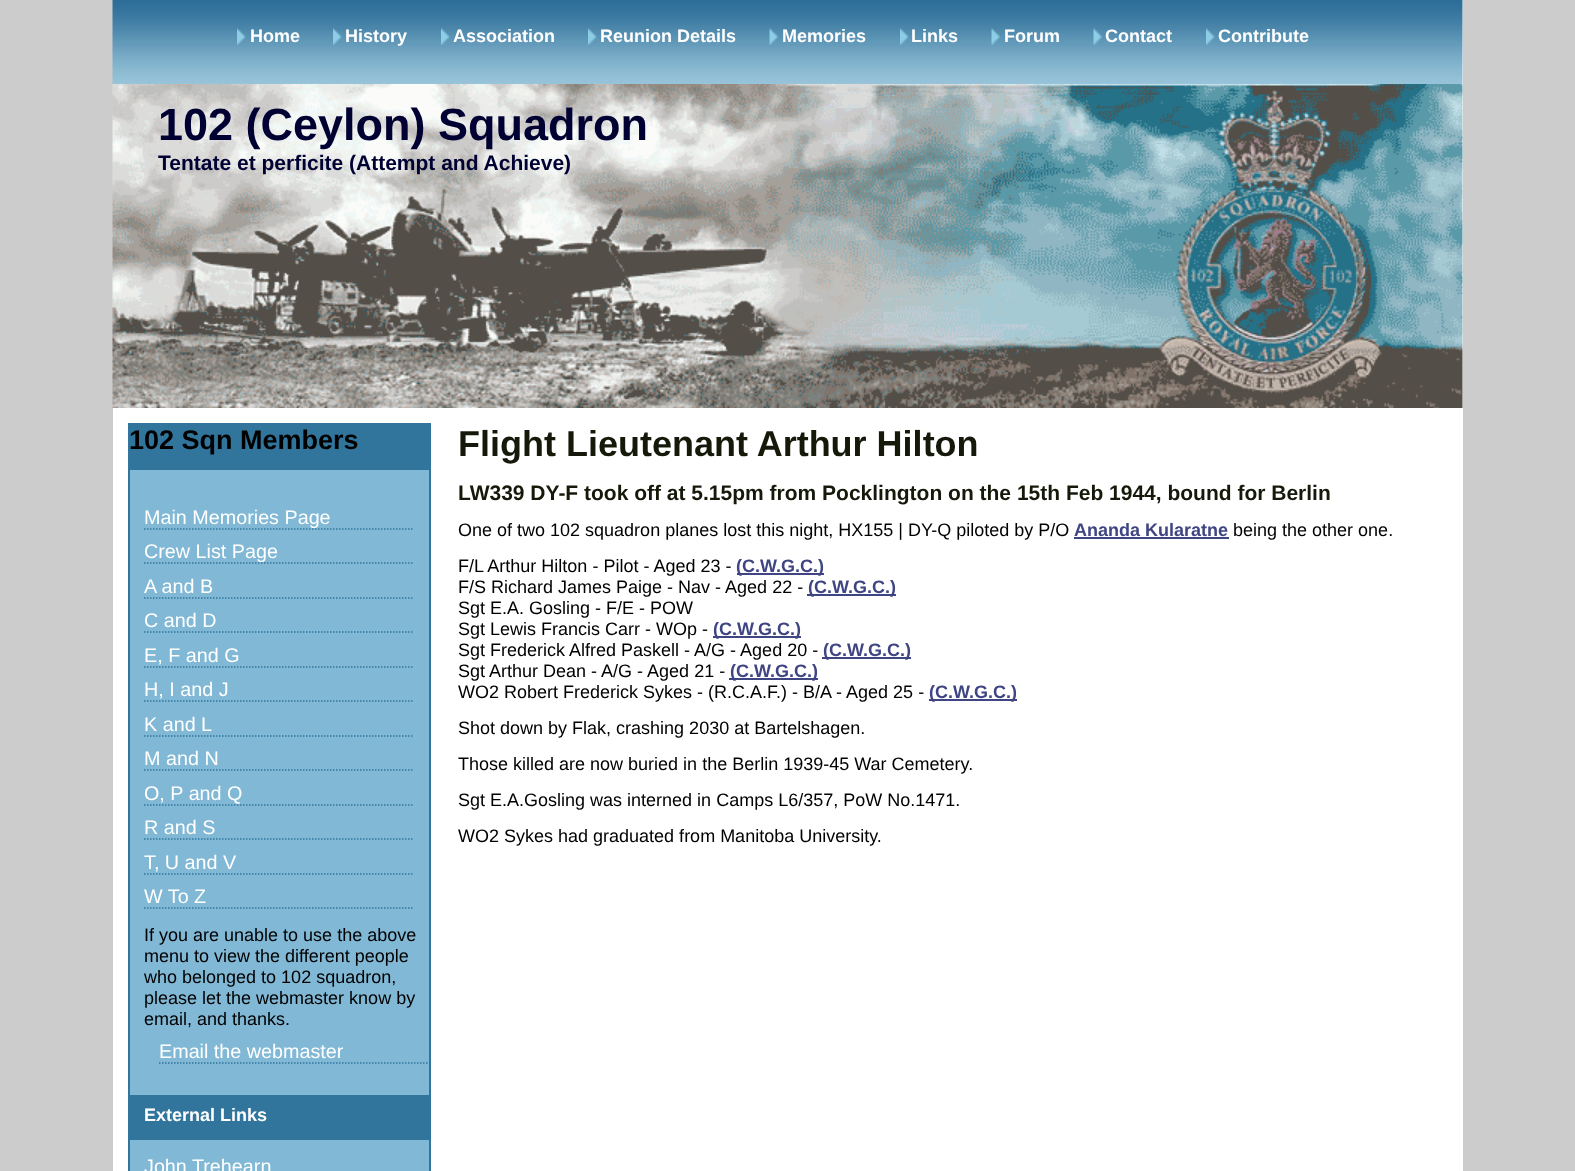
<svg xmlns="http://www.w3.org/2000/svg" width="1575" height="1171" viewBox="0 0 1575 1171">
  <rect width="100%" height="100%" fill="rgb(204,204,204)"/>
  <rect x="113" y="0" width="1350" height="1171" fill="rgb(255,255,255)"/>
  <image x="112" y="0" width="1351" height="84" href="pic1.png"/>
  <image x="237" y="28" width="9" height="17" href="pic2.png"/>
  <text x="250" y="42" font-family="Liberation Sans" font-size="18" font-weight="bold" fill="rgb(255,255,255)">Home</text>
  <image x="333" y="28" width="9" height="17" href="pic3.png"/>
  <text x="345" y="42" font-family="Liberation Sans" font-size="18" font-weight="bold" fill="rgb(255,255,255)">History</text>
  <image x="441" y="28" width="9" height="17" href="pic3.png"/>
  <text x="453" y="42" font-family="Liberation Sans" font-size="18" font-weight="bold" fill="rgb(255,255,255)">Association</text>
  <image x="588" y="28" width="9" height="17" href="pic3.png"/>
  <text x="600" y="42" font-family="Liberation Sans" font-size="18" font-weight="bold" fill="rgb(255,255,255)">Reunion Details</text>
  <image x="769" y="28" width="10" height="17" href="pic4.png"/>
  <text x="782" y="42" font-family="Liberation Sans" font-size="18" font-weight="bold" fill="rgb(255,255,255)">Memories</text>
  <image x="900" y="28" width="9" height="17" href="pic2.png"/>
  <text x="911" y="42" font-family="Liberation Sans" font-size="18" font-weight="bold" fill="rgb(255,255,255)">Links</text>
  <image x="991" y="28" width="10" height="17" href="pic4.png"/>
  <text x="1004" y="42" font-family="Liberation Sans" font-size="18" font-weight="bold" fill="rgb(255,255,255)">Forum</text>
  <image x="1093" y="28" width="10" height="17" href="pic4.png"/>
  <text x="1105" y="42" font-family="Liberation Sans" font-size="18" font-weight="bold" fill="rgb(255,255,255)">Contact</text>
  <image x="1206" y="28" width="9" height="17" href="pic3.png"/>
  <text x="1218" y="42" font-family="Liberation Sans" font-size="18" font-weight="bold" fill="rgb(255,255,255)">Contribute</text>
  <image x="112" y="84" width="1351" height="324" href="pic5.png"/>
  <text x="158" y="140" font-family="Liberation Sans" font-size="45" font-weight="bold" fill="rgb(0,0,51)">102 (Ceylon) Squadron</text>
  <text x="158" y="170" font-family="Liberation Sans" font-size="21" font-weight="bold" fill="rgb(0,0,51)">Tentate et perficite (Attempt and Achieve)</text>
  <rect x="130" y="470" width="299" height="701" fill="rgb(128,184,213)"/>
  <rect x="129" y="424" width="301" height="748" fill="none" stroke="rgb(49,117,156)" stroke-width="2"/>
  <rect x="130" y="425" width="299" height="45" fill="rgb(49,117,156)"/>
  <text x="129" y="449" font-family="Liberation Sans" font-size="27" font-weight="bold" fill="rgb(0,0,0)">102 Sqn Members</text>
  <path d="M144 529H414" fill="none" stroke="rgb(49,117,156)" stroke-width="1.5" stroke-dasharray="1.5 1.5"/>
  <text x="144" y="524" font-family="Liberation Sans" font-size="19.75" fill="rgb(255,255,255)">Main Memories Page</text>
  <path d="M144 563H414" fill="none" stroke="rgb(49,117,156)" stroke-width="1.5" stroke-dasharray="1.5 1.5"/>
  <text x="144" y="558" font-family="Liberation Sans" font-size="19.75" fill="rgb(255,255,255)">Crew List Page</text>
  <path d="M144 598H414" fill="none" stroke="rgb(49,117,156)" stroke-width="1.5" stroke-dasharray="1.5 1.5"/>
  <text x="144" y="593" font-family="Liberation Sans" font-size="19.75" fill="rgb(255,255,255)">A and B</text>
  <path d="M144 632H414" fill="none" stroke="rgb(49,117,156)" stroke-width="1.5" stroke-dasharray="1.5 1.5"/>
  <text x="144" y="627" font-family="Liberation Sans" font-size="19.75" fill="rgb(255,255,255)">C and D</text>
  <path d="M144 667H414" fill="none" stroke="rgb(49,117,156)" stroke-width="1.5" stroke-dasharray="1.5 1.5"/>
  <text x="144" y="662" font-family="Liberation Sans" font-size="19.75" fill="rgb(255,255,255)">E, F and G</text>
  <path d="M144 701H414" fill="none" stroke="rgb(49,117,156)" stroke-width="1.5" stroke-dasharray="1.5 1.5"/>
  <text x="144" y="696" font-family="Liberation Sans" font-size="19.75" fill="rgb(255,255,255)">H, I and J</text>
  <path d="M144 736H414" fill="none" stroke="rgb(49,117,156)" stroke-width="1.5" stroke-dasharray="1.5 1.5"/>
  <text x="144" y="731" font-family="Liberation Sans" font-size="19.75" fill="rgb(255,255,255)">K and L</text>
  <path d="M144 770H414" fill="none" stroke="rgb(49,117,156)" stroke-width="1.5" stroke-dasharray="1.5 1.5"/>
  <text x="144" y="765" font-family="Liberation Sans" font-size="19.75" fill="rgb(255,255,255)">M and N</text>
  <path d="M144 805H414" fill="none" stroke="rgb(49,117,156)" stroke-width="1.5" stroke-dasharray="1.5 1.5"/>
  <text x="144" y="800" font-family="Liberation Sans" font-size="19.75" fill="rgb(255,255,255)">O, P and Q</text>
  <path d="M144 839H414" fill="none" stroke="rgb(49,117,156)" stroke-width="1.5" stroke-dasharray="1.5 1.5"/>
  <text x="144" y="834" font-family="Liberation Sans" font-size="19.75" fill="rgb(255,255,255)">R and S</text>
  <path d="M144 874H414" fill="none" stroke="rgb(49,117,156)" stroke-width="1.5" stroke-dasharray="1.5 1.5"/>
  <text x="144" y="869" font-family="Liberation Sans" font-size="19.75" fill="rgb(255,255,255)">T, U and V</text>
  <path d="M144 908H414" fill="none" stroke="rgb(49,117,156)" stroke-width="1.5" stroke-dasharray="1.5 1.5"/>
  <text x="144" y="903" font-family="Liberation Sans" font-size="19.75" fill="rgb(255,255,255)">W To Z</text>
  <g font-family="Liberation Sans" font-size="18" fill="rgb(0,0,0)">
    <text>
      <tspan x="144" y="941">If you are unable to use the above</tspan>
      <tspan x="144" y="962">menu to view the different people</tspan>
      <tspan x="144" y="983">who belonged to 102 squadron,</tspan>
      <tspan x="144" y="1004">please let the webmaster know by</tspan>
      <tspan x="144" y="1025">email, and thanks.</tspan>
    </text>
  </g>
  <path d="M159 1063H429" fill="none" stroke="rgb(49,117,156)" stroke-width="1.5" stroke-dasharray="1.5 1.5"/>
  <text x="159" y="1058" font-family="Liberation Sans" font-size="19.75" fill="rgb(255,255,255)">Email the webmaster</text>
  <rect x="130" y="1095" width="299" height="45" fill="rgb(49,117,156)"/>
  <text x="144" y="1121" font-family="Liberation Sans" font-size="18" font-weight="bold" fill="rgb(255,255,255)">External Links</text>
  <text x="144" y="1173" font-family="Liberation Sans" font-size="19.75" fill="rgb(255,255,255)">John Trehearn</text>
  <text x="458" y="456" font-family="Liberation Sans" font-size="36" font-weight="bold" fill="rgb(21,25,10)">Flight Lieutenant Arthur Hilton</text>
  <text x="458" y="500" font-family="Liberation Sans" font-size="21" font-weight="bold" fill="rgb(21,25,10)">LW339 DY-F took off at 5.15pm from Pocklington on the 15th Feb 1944, bound for Berlin</text>
  <text x="458" y="536" font-family="Liberation Sans" font-size="18" fill="rgb(0,0,0)">One of two 102 squadron planes lost this night, HX155 | DY-Q piloted by P/O</text>
  <text x="1074" y="536" font-family="Liberation Sans" font-size="18" font-weight="bold" fill="rgb(63,69,131)">Ananda Kularatne</text>
  <rect x="1074" y="537" width="155" height="2" fill="rgb(63,69,131)"/>
  <g font-family="Liberation Sans" font-size="18" fill="rgb(0,0,0)">
    <text x="1233" y="536">being the other one.</text>
    <text x="458" y="572">F/L Arthur Hilton - Pilot - Aged 23 -</text>
  </g>
  <rect x="737" y="573" width="87" height="2" fill="rgb(63,69,131)"/>
  <text x="736" y="572" font-family="Liberation Sans" font-size="18" font-weight="bold" fill="rgb(63,69,131)">(C.W.G.C.)</text>
  <text x="458" y="593" font-family="Liberation Sans" font-size="18" fill="rgb(0,0,0)">F/S Richard James Paige - Nav - Aged 22 -</text>
  <rect x="807" y="594" width="89" height="2" fill="rgb(63,69,131)"/>
  <text x="808" y="593" font-family="Liberation Sans" font-size="18" font-weight="bold" fill="rgb(63,69,131)">(C.W.G.C.)</text>
  <g font-family="Liberation Sans" font-size="18" fill="rgb(0,0,0)">
    <text>
      <tspan x="458" y="614">Sgt E.A. Gosling - F/E - POW</tspan>
      <tspan x="458" y="635">Sgt Lewis Francis Carr - WOp -</tspan>
    </text>
  </g>
  <rect x="713" y="636" width="88" height="2" fill="rgb(63,69,131)"/>
  <text x="713" y="635" font-family="Liberation Sans" font-size="18" font-weight="bold" fill="rgb(63,69,131)">(C.W.G.C.)</text>
  <text x="458" y="656" font-family="Liberation Sans" font-size="18" fill="rgb(0,0,0)">Sgt Frederick Alfred Paskell - A/G - Aged 20 -</text>
  <rect x="822" y="657" width="89" height="2" fill="rgb(63,69,131)"/>
  <text x="823" y="656" font-family="Liberation Sans" font-size="18" font-weight="bold" fill="rgb(63,69,131)">(C.W.G.C.)</text>
  <text x="458" y="677" font-family="Liberation Sans" font-size="18" fill="rgb(0,0,0)">Sgt Arthur Dean - A/G - Aged 21 -</text>
  <rect x="729" y="678" width="89" height="2" fill="rgb(63,69,131)"/>
  <text x="730" y="677" font-family="Liberation Sans" font-size="18" font-weight="bold" fill="rgb(63,69,131)">(C.W.G.C.)</text>
  <text x="458" y="698" font-family="Liberation Sans" font-size="18" fill="rgb(0,0,0)">WO2 Robert Frederick Sykes - (R.C.A.F.) - B/A - Aged 25 -</text>
  <rect x="929" y="699" width="88" height="2" fill="rgb(63,69,131)"/>
  <text x="929" y="698" font-family="Liberation Sans" font-size="18" font-weight="bold" fill="rgb(63,69,131)">(C.W.G.C.)</text>
  <g font-family="Liberation Sans" font-size="18" fill="rgb(0,0,0)">
    <text x="458" y="734">Shot down by Flak, crashing 2030 at Bartelshagen.</text>
    <text x="458" y="770">Those killed are now buried in the Berlin 1939-45 War Cemetery.</text>
    <text x="458" y="806">Sgt E.A.Gosling was interned in Camps L6/357, PoW No.1471.</text>
    <text x="458" y="842">WO2 Sykes had graduated from Manitoba University.</text>
  </g>
</svg>
